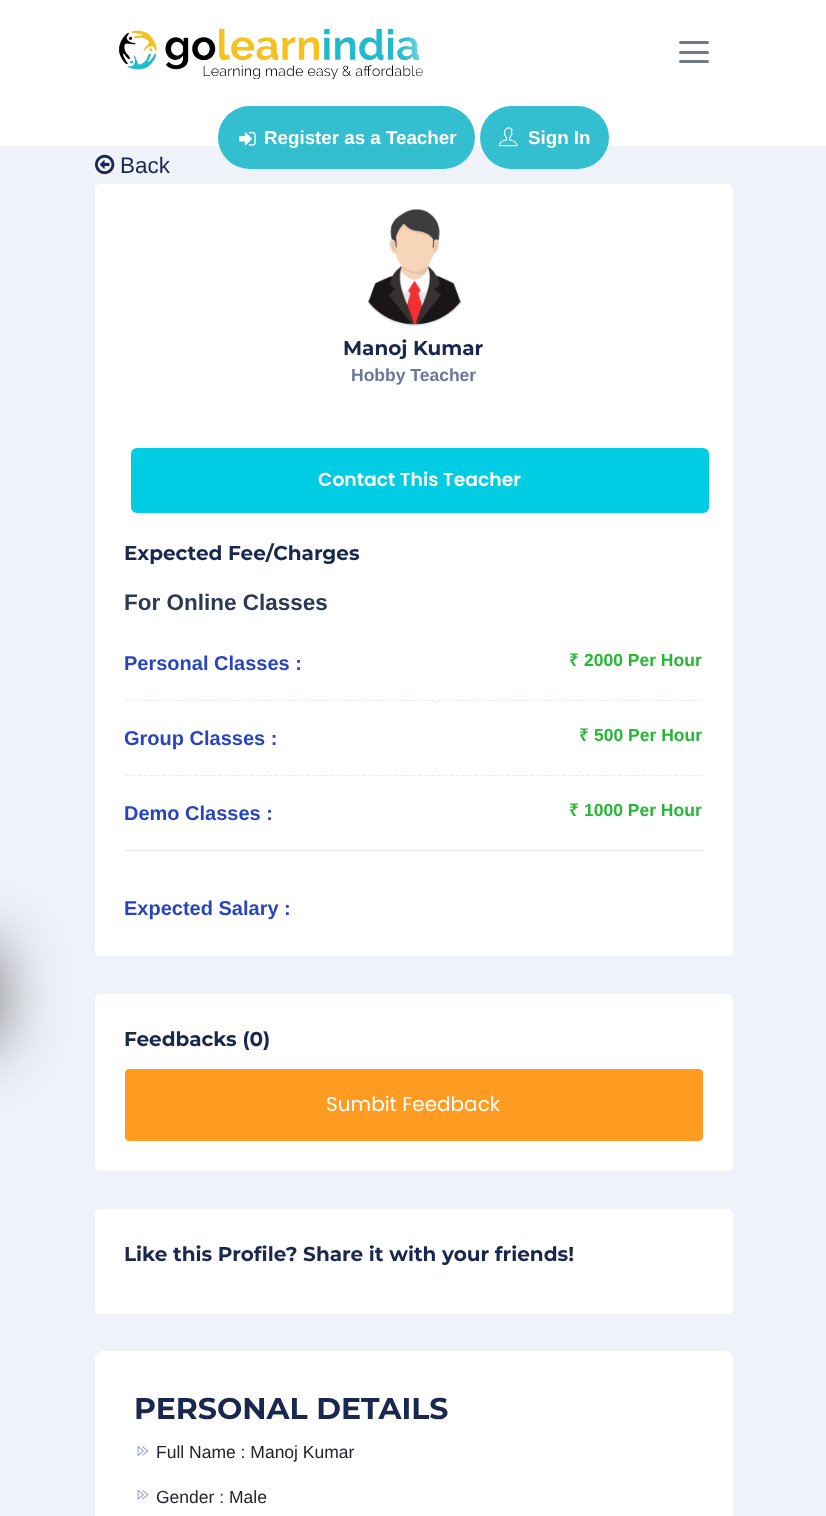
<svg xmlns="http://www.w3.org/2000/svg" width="826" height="1516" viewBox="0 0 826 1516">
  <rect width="100%" height="100%" fill="rgb(255,255,255)"/>
  <image x="119" y="28" width="305" height="51" href="pic1.png"/>
  <rect x="679" y="60" width="30" height="3" rx="1.5" fill="rgb(112,121,139)"/>
  <rect x="679" y="51" width="30" height="3" rx="1.5" fill="rgb(112,121,139)"/>
  <rect x="679" y="41" width="30" height="3" rx="1.5" fill="rgb(112,121,139)"/>
  <rect x="0" y="146" width="826" height="1370" fill="rgb(239,242,249)"/>
  <rect x="218" y="106" width="257" height="63" rx="31.5" fill="rgb(51,191,207)"/>
  <image x="239" y="131" width="17" height="15" href="pic2.png"/>
  <text x="264" y="144" font-family="Liberation Sans" font-size="18.75" font-weight="bold" fill="rgb(255,255,255)">Register as a Teacher</text>
  <rect x="480" y="106" width="129" height="63" rx="31.5" fill="rgb(51,191,207)"/>
  <image x="498" y="127" width="20" height="20" href="pic3.png"/>
  <text x="528" y="144" font-family="Liberation Sans" font-size="18.75" font-weight="bold" fill="rgb(255,255,255)">Sign In</text>
  <rect x="-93" y="945" width="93" height="100" fill="rgba(0,0,0,0.5)" filter="blur(31px)"/>
  <image x="95" y="154" width="20" height="21" href="pic4.png"/>
  <text x="120" y="173" font-family="Liberation Sans" font-size="22.5" fill="rgb(26,39,78)">Back</text>
  <rect x="95" y="184" width="638" height="772" rx="5" fill="rgb(255,255,255)"/>
  <image x="367" y="208" width="95" height="119" href="pic5.png"/>
  <text x="343" y="355" font-family="Montserrat" font-size="20" font-weight="bold" fill="rgb(26,39,78)">Manoj Kumar</text>
  <text x="351" y="381" font-family="Liberation Sans" font-size="17.5" font-weight="bold" fill="rgb(106,121,154)">Hobby Teacher</text>
  <rect x="131" y="448" width="578" height="65" rx="6" fill="rgb(0,204,228)"/>
  <text x="318" y="486" font-family="Poppins" font-size="18.75" font-weight="600" fill="rgb(255,255,255)">Contact This Teacher</text>
  <text x="124" y="560" font-family="Montserrat" font-size="20" font-weight="bold" fill="rgb(26,39,78)">Expected Fee/Charges</text>
  <text x="124" y="610" font-family="Liberation Sans" font-size="22.5" font-weight="bold" fill="rgb(45,57,84)">For Online Classes</text>
  <path d="M125 700.5H702.5" fill="none" stroke="rgb(231,235,243)" stroke-width="1.2" stroke-dasharray="3.75 2.49"/>
  <text x="124" y="670" font-family="Liberation Sans" font-size="20" font-weight="bold" fill="rgb(41,68,193)">Personal Classes :</text>
  <text x="569" y="666" font-family="Noto Sans" font-size="17.5" font-weight="600" fill="rgb(39,183,55)">₹</text>
  <text x="584" y="666" font-family="Liberation Sans" font-size="17.5" font-weight="bold" fill="rgb(39,183,55)">2000 Per Hour</text>
  <path d="M125 775.5H702.5" fill="none" stroke="rgb(231,235,243)" stroke-width="1.2" stroke-dasharray="3.75 2.49"/>
  <text x="124" y="745" font-family="Liberation Sans" font-size="20" font-weight="bold" fill="rgb(41,68,193)">Group Classes :</text>
  <text x="579" y="741" font-family="Noto Sans" font-size="17.5" font-weight="600" fill="rgb(39,183,55)">₹</text>
  <text x="594" y="741" font-family="Liberation Sans" font-size="17.5" font-weight="bold" fill="rgb(39,183,55)">500 Per Hour</text>
  <text x="124" y="820" font-family="Liberation Sans" font-size="20" font-weight="bold" fill="rgb(41,68,193)">Demo Classes :</text>
  <text x="569" y="816" font-family="Noto Sans" font-size="17.5" font-weight="600" fill="rgb(39,183,55)">₹</text>
  <text x="584" y="816" font-family="Liberation Sans" font-size="17.5" font-weight="bold" fill="rgb(39,183,55)">1000 Per Hour</text>
  <rect x="125" y="850" width="578" height="1" fill="rgb(230,230,230)"/>
  <text x="124" y="915" font-family="Liberation Sans" font-size="20" font-weight="bold" fill="rgb(41,68,193)">Expected Salary :</text>
  <rect x="95" y="994" width="638" height="177" rx="5" fill="rgb(255,255,255)"/>
  <text x="124" y="1046" font-family="Montserrat" font-size="20" font-weight="bold" fill="rgb(26,39,78)">Feedbacks (0)</text>
  <rect x="125.5" y="1069.5" width="577" height="71" rx="3.5" fill="rgb(255,155,32)" stroke="rgb(255,155,32)"/>
  <text x="326" y="1111" font-family="Poppins" font-size="20" fill="rgb(255,255,255)">Sumbit Feedback</text>
  <rect x="95" y="1209" width="638" height="105" rx="5" fill="rgb(255,255,255)"/>
  <text x="124" y="1261" font-family="Montserrat" font-size="20" font-weight="bold" fill="rgb(26,39,78)">Like this Profile? Share it with your friends!</text>
  <rect x="95" y="1351" width="638" height="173" rx="8" fill="rgb(255,255,255)"/>
  <text x="134" y="1419" font-family="Montserrat" font-size="30" font-weight="bold" fill="rgb(26,39,78)">PERSONAL DETAILS</text>
  <image x="137" y="1445" width="12" height="12" href="pic6.png"/>
  <text x="156" y="1458" font-family="Liberation Sans" font-size="17.5" fill="rgb(33,37,41)">Full Name : Manoj Kumar</text>
  <image x="137" y="1489" width="12" height="11" href="pic7.png"/>
  <text x="156" y="1503" font-family="Liberation Sans" font-size="17.5" fill="rgb(33,37,41)">Gender : Male</text>
</svg>
